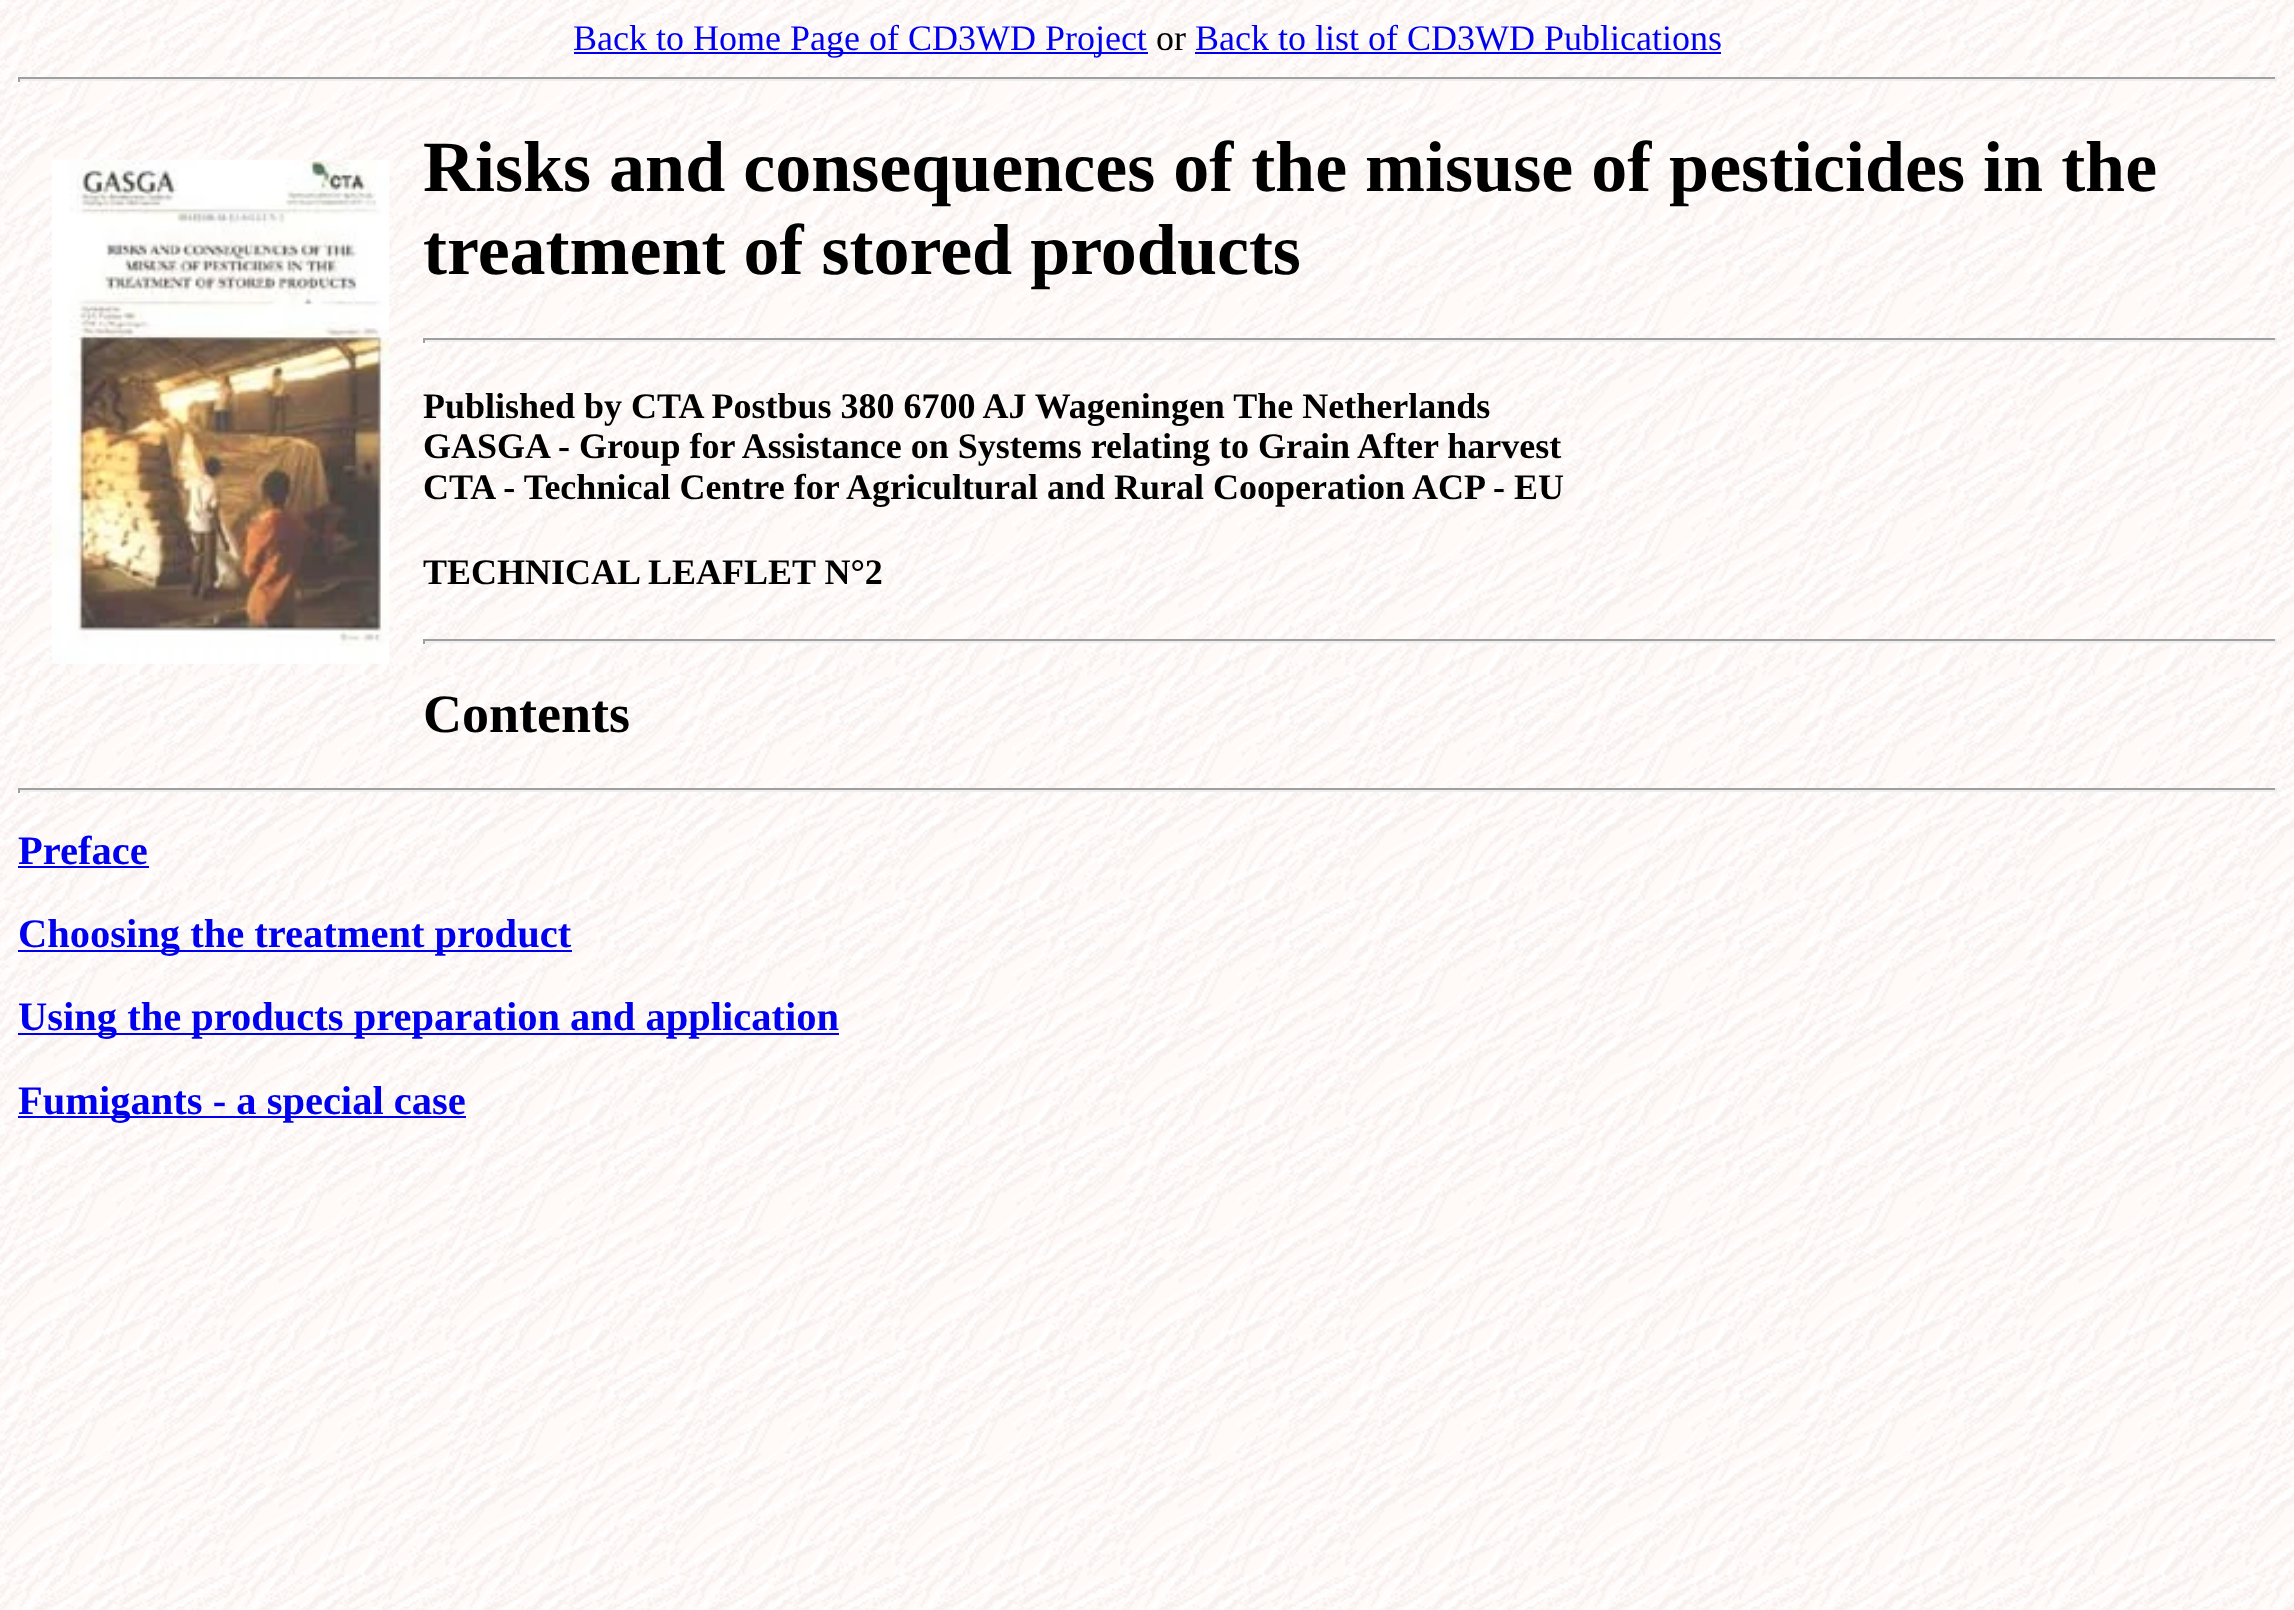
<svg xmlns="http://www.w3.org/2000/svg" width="2294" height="1610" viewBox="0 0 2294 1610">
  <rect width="100%" height="100%" fill="rgb(255,255,255)"/>
  <image x="0" y="0" width="2294" height="1610" href="pic1.png"/>
  <rect x="574" y="52" width="574" height="2" fill="rgb(0,0,238)"/>
  <text x="573" y="50" font-family="Liberation Serif" font-size="36" fill="rgb(0,0,238)">Back to Home Page of CD3WD Project</text>
  <text x="1156" y="50" font-family="Liberation Serif" font-size="36" fill="rgb(0,0,0)">or</text>
  <text x="1195" y="50" font-family="Liberation Serif" font-size="36" fill="rgb(0,0,238)">Back to list of CD3WD Publications</text>
  <rect x="1195" y="52" width="526" height="2" fill="rgb(0,0,238)"/>
  <rect x="18" y="77" width="2259" height="2" fill="rgb(159,159,159)"/>
  <rect x="2275" y="77" width="2" height="5" fill="rgb(238,238,238)"/>
  <rect x="18" y="79" width="2259" height="2" fill="rgb(238,238,238)"/>
  <rect x="18" y="77" width="2" height="5" fill="rgb(159,159,159)"/>
  <image x="51" y="159" width="339" height="505" href="pic2.png"/>
  <g font-family="Liberation Serif" font-size="72" font-weight="bold" fill="rgb(0,0,0)">
    <text>
      <tspan x="423" y="191">Risks and consequences of the misuse of pesticides in the</tspan>
      <tspan x="423" y="274">treatment of stored products</tspan>
    </text>
  </g>
  <rect x="423" y="338" width="1854" height="2" fill="rgb(159,159,159)"/>
  <rect x="2275" y="338" width="2" height="5" fill="rgb(238,238,238)"/>
  <rect x="423" y="340" width="1854" height="2" fill="rgb(238,238,238)"/>
  <rect x="423" y="338" width="2" height="5" fill="rgb(159,159,159)"/>
  <g font-family="Liberation Serif" font-size="36" font-weight="bold" fill="rgb(0,0,0)">
    <text>
      <tspan x="423" y="418">Published by CTA Postbus 380 6700 AJ Wageningen The Netherlands</tspan>
      <tspan x="423" y="458">GASGA - Group for Assistance on Systems relating to Grain After harvest</tspan>
      <tspan x="423" y="499">CTA - Technical Centre for Agricultural and Rural Cooperation ACP - EU</tspan>
    </text>
    <text x="423" y="584">TECHNICAL LEAFLET N°2</text>
  </g>
  <rect x="423" y="639" width="1854" height="2" fill="rgb(159,159,159)"/>
  <rect x="2275" y="639" width="2" height="5" fill="rgb(238,238,238)"/>
  <rect x="423" y="641" width="1854" height="2" fill="rgb(238,238,238)"/>
  <rect x="423" y="639" width="2" height="5" fill="rgb(159,159,159)"/>
  <text x="423" y="732" font-family="Liberation Serif" font-size="54" font-weight="bold" fill="rgb(0,0,0)">Contents</text>
  <rect x="18" y="788" width="2259" height="2" fill="rgb(159,159,159)"/>
  <rect x="2275" y="788" width="2" height="5" fill="rgb(238,238,238)"/>
  <rect x="18" y="790" width="2259" height="2" fill="rgb(238,238,238)"/>
  <rect x="18" y="788" width="2" height="5" fill="rgb(159,159,159)"/>
  <text x="18" y="864" font-family="Liberation Serif" font-size="40.5" font-weight="bold" fill="rgb(0,0,238)">Preface</text>
  <rect x="18" y="866" width="131" height="2" fill="rgb(0,0,238)"/>
  <rect x="18" y="950" width="554" height="2" fill="rgb(0,0,238)"/>
  <text x="18" y="947" font-family="Liberation Serif" font-size="40.5" font-weight="bold" fill="rgb(0,0,238)">Choosing the treatment product</text>
  <rect x="18" y="1033" width="821" height="2" fill="rgb(0,0,238)"/>
  <text x="18" y="1030" font-family="Liberation Serif" font-size="40.5" font-weight="bold" fill="rgb(0,0,238)">Using the products preparation and application</text>
  <rect x="18" y="1116" width="448" height="2" fill="rgb(0,0,238)"/>
  <text x="18" y="1114" font-family="Liberation Serif" font-size="40.5" font-weight="bold" fill="rgb(0,0,238)">Fumigants - a special case</text>
</svg>
